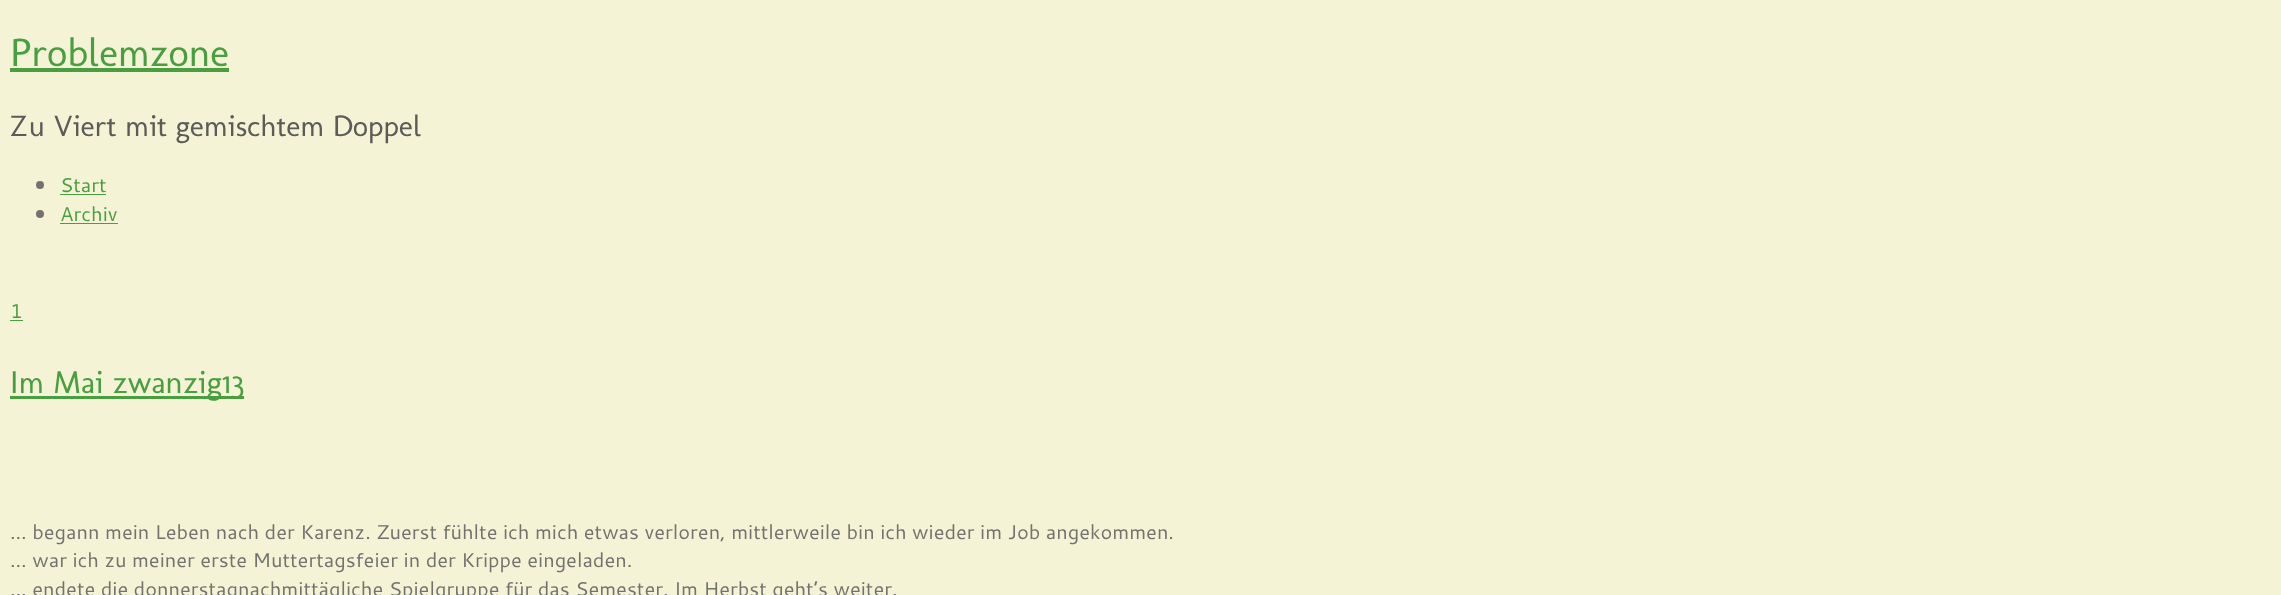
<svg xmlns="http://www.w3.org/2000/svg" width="2281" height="595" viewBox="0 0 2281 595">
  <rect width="100%" height="100%" fill="rgb(245,243,214)"/>
  <text x="10" y="66" font-family="Molengo" font-size="40" fill="rgb(73,158,63)">Problemzone</text>
  <rect x="10" y="68" width="219" height="4" fill="rgb(73,158,63)"/>
  <text x="10" y="136" font-family="Molengo" font-size="30" fill="rgb(91,91,87)">Zu Viert mit gemischtem Doppel</text>
  <circle cx="40" cy="185" r="4" fill="rgb(114,114,110)"/>
  <text x="60" y="192" font-family="Cantarell" font-size="20" fill="rgb(73,158,63)">Start</text>
  <rect x="60" y="194" width="46" height="1" fill="rgb(73,158,63)"/>
  <circle cx="40" cy="214" r="4" fill="rgb(114,114,110)"/>
  <text x="60" y="221" font-family="Cantarell" font-size="20" fill="rgb(73,158,63)">Archiv</text>
  <rect x="60" y="223" width="58" height="1" fill="rgb(73,158,63)"/>
  <text x="10" y="318" font-family="Cantarell" font-size="20" fill="rgb(73,158,63)">1</text>
  <rect x="10" y="320" width="13" height="1" fill="rgb(73,158,63)"/>
  <rect x="10" y="396" width="234" height="3" fill="rgb(73,158,63)"/>
  <text x="10" y="393" font-family="Molengo" font-size="32" fill="rgb(73,158,63)">Im Mai zwanzig13</text>
  <g font-family="Cantarell" font-size="20" fill="rgb(114,114,110)">
    <text>
      <tspan x="10" y="539">… begann mein Leben nach der Karenz. Zuerst fühlte ich mich etwas verloren, mittlerweile bin ich wieder im Job angekommen.</tspan>
      <tspan x="10" y="567">… war ich zu meiner erste Muttertagsfeier in der Krippe eingeladen.</tspan>
      <tspan x="10" y="596">… endete die donnerstagnachmittägliche Spielgruppe für das Semester. Im Herbst geht’s weiter.</tspan>
    </text>
  </g>
</svg>
